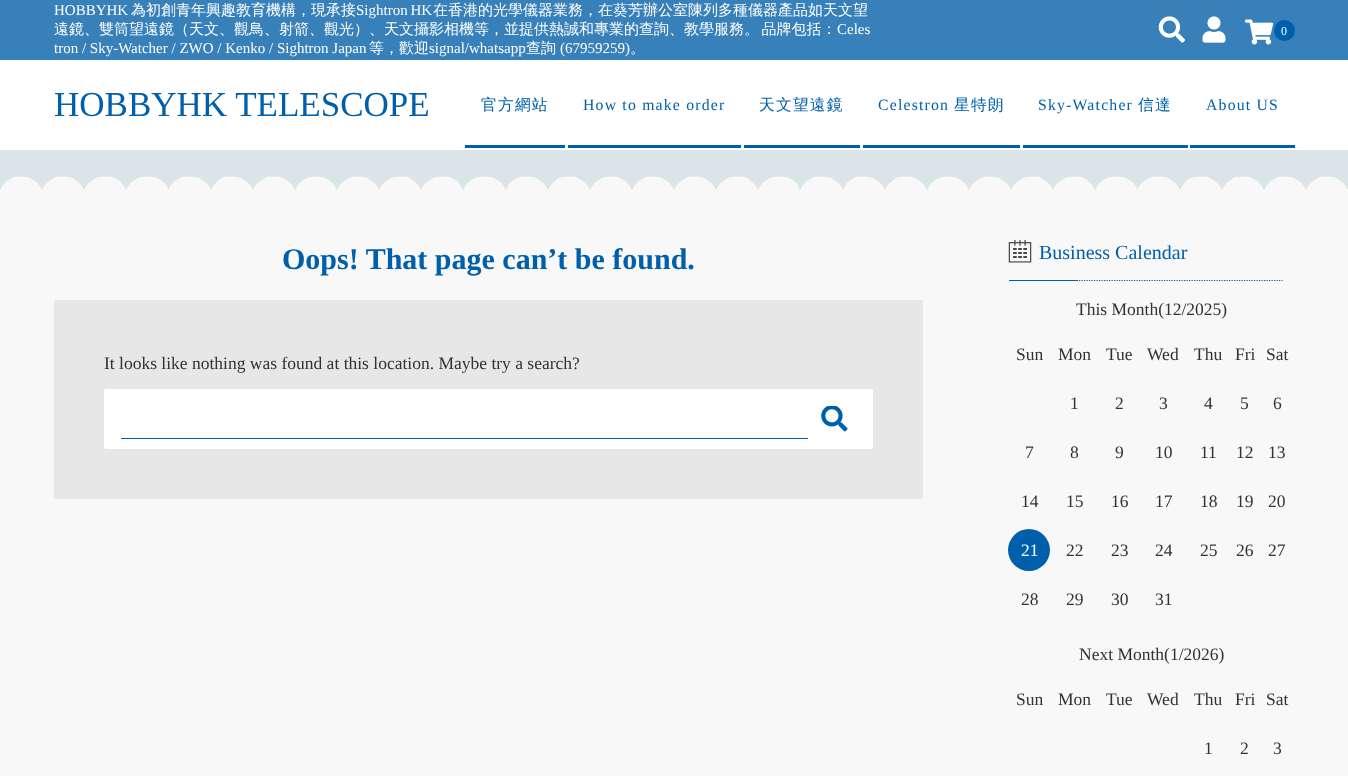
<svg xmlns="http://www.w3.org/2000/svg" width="1348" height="776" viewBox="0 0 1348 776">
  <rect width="100%" height="100%" fill="rgb(219,228,230)"/>
  <rect x="0" y="0" width="1348" height="60" fill="rgb(55,128,186)"/>
  <text x="54" y="15" font-family="Liberation Serif" font-size="15" fill="rgb(255,255,255)">HOBBYHK</text>
  <text x="131" y="15" font-family="WenQuanYi Zen Hei" font-size="15" font-weight="500" fill="rgb(255,255,255)">為初創青年興趣教育機構，現承接</text>
  <text x="356" y="15" word-spacing="-1" font-family="Liberation Serif" font-size="15" fill="rgb(255,255,255)">Sightron HK</text>
  <g font-family="WenQuanYi Zen Hei" font-size="15" font-weight="500" fill="rgb(255,255,255)">
    <text x="433" y="15">在香港的光學儀器業務，在葵芳辦公室陳列多種儀器產品如天文望</text>
    <text x="54" y="34" word-spacing="-2">遠鏡、雙筒望遠鏡（天文、觀鳥、射箭、觀光）、天文攝影相機等，並提供熱誠和專業的查詢、教學服務。 品牌包括：</text>
  </g>
  <g font-family="Liberation Serif" font-size="15" fill="rgb(255,255,255)">
    <text x="837" y="34">Celes</text>
    <text x="54" y="53">tron / Sky-Watcher / ZWO / Kenko / Sightron Japan</text>
  </g>
  <text x="369" y="53" font-family="WenQuanYi Zen Hei" font-size="15" font-weight="500" fill="rgb(255,255,255)">等，歡迎</text>
  <text x="429" y="53" font-family="Liberation Serif" font-size="15" fill="rgb(255,255,255)">signal/whatsapp</text>
  <text x="526" y="53" font-family="WenQuanYi Zen Hei" font-size="15" font-weight="500" fill="rgb(255,255,255)">查詢</text>
  <text x="560" y="53" font-family="Liberation Serif" font-size="15" fill="rgb(255,255,255)">(67959259)</text>
  <text x="630" y="53" font-family="WenQuanYi Zen Hei" font-size="15" font-weight="500" fill="rgb(255,255,255)">。</text>
  <rect x="0" y="60" width="1348" height="90" fill="rgb(255,255,255)"/>
  <text x="54" y="116" font-family="Liberation Serif" font-size="35" fill="rgb(0,95,171)">HOBBYHK TELESCOPE</text>
  <rect x="0" y="190" width="1348" height="586" fill="rgb(248,248,248)"/>
  <image x="0" y="176" width="1348" height="14" href="pic1.png"/>
  <text x="282" y="269" font-family="Liberation Serif" font-size="30" font-weight="bold" fill="rgb(0,95,171)">Oops! That page can’t be found.</text>
  <rect x="54" y="300" width="869" height="199" fill="rgb(231,231,231)"/>
  <text x="104" y="369" font-family="Liberation Serif" font-size="17.5" fill="rgb(50,50,50)">It looks like nothing was found at this location. Maybe try a search?</text>
  <rect x="104" y="389" width="769" height="60" rx="2.5" fill="rgb(255,255,255)"/>
  <image x="821" y="406" width="27" height="26" href="pic2.png"/>
  <rect x="121" y="438" width="687" height="1" fill="rgb(0,95,171)"/>
  <path d="M1009 280.5H1282.5" fill="none" stroke="rgb(0,95,171)" stroke-width="1.2" stroke-dasharray="1.25 1.25"/>
  <image x="1008" y="240" width="24" height="23" href="pic3.png"/>
  <text x="1039" y="259" font-family="Liberation Serif" font-size="20" fill="rgb(0,95,171)">Business Calendar</text>
  <rect x="1009" y="280" width="69" height="1" fill="rgb(0,95,171)"/>
  <g font-family="Liberation Serif" font-size="17.5" fill="rgb(50,50,50)">
    <text x="1076" y="315">This Month(12/2025)</text>
    <text x="1016" y="360">Sun</text>
    <text x="1058" y="360">Mon</text>
    <text x="1106" y="360">Tue</text>
    <text x="1147" y="360">Wed</text>
    <text x="1194" y="360">Thu</text>
    <text x="1235" y="360">Fri</text>
    <text x="1266" y="360">Sat</text>
    <text x="1070" y="409">1</text>
    <text x="1115" y="409">2</text>
    <text x="1159" y="409">3</text>
    <text x="1204" y="409">4</text>
    <text x="1240" y="409">5</text>
    <text x="1273" y="409">6</text>
    <text x="1025" y="458">7</text>
    <text x="1070" y="458">8</text>
    <text x="1115" y="458">9</text>
    <text x="1155" y="458">10</text>
    <text x="1200" y="458">11</text>
    <text x="1236" y="458">12</text>
    <text x="1268" y="458">13</text>
    <text x="1021" y="507">14</text>
    <text x="1066" y="507">15</text>
    <text x="1111" y="507">16</text>
    <text x="1155" y="507">17</text>
    <text x="1200" y="507">18</text>
    <text x="1236" y="507">19</text>
    <text x="1268" y="507">20</text>
  </g>
  <circle cx="1029" cy="550" r="21" fill="rgb(0,95,171)"/>
  <text x="1021" y="556" font-family="Liberation Serif" font-size="17.5" fill="rgb(255,255,255)">21</text>
  <g font-family="Liberation Serif" font-size="17.5" fill="rgb(50,50,50)">
    <text x="1066" y="556">22</text>
    <text x="1111" y="556">23</text>
    <text x="1155" y="556">24</text>
    <text x="1200" y="556">25</text>
    <text x="1236" y="556">26</text>
    <text x="1268" y="556">27</text>
    <text x="1021" y="605">28</text>
    <text x="1066" y="605">29</text>
    <text x="1111" y="605">30</text>
    <text x="1155" y="605">31</text>
    <text x="1079" y="660">Next Month(1/2026)</text>
    <text x="1016" y="705">Sun</text>
    <text x="1058" y="705">Mon</text>
    <text x="1106" y="705">Tue</text>
    <text x="1147" y="705">Wed</text>
    <text x="1194" y="705">Thu</text>
    <text x="1235" y="705">Fri</text>
    <text x="1266" y="705">Sat</text>
    <text x="1204" y="754">1</text>
    <text x="1240" y="754">2</text>
    <text x="1273" y="754">3</text>
  </g>
  <image x="1158" y="16" width="27" height="27" href="pic4.png"/>
  <image x="1202" y="16" width="24" height="27" href="pic5.png"/>
  <image x="1245" y="19" width="29" height="26" href="pic6.png"/>
  <circle cx="1284.5" cy="30.5" r="10.5" fill="rgb(0,95,171)"/>
  <text x="1281" y="35" font-family="Liberation Serif" font-size="12" fill="rgb(255,255,255)">0</text>
  <rect x="465" y="145" width="100" height="3" fill="rgb(0,95,171)"/>
  <text x="481" y="110" font-family="WenQuanYi Zen Hei" font-size="15.75" font-weight="500" letter-spacing="1.2" fill="rgb(0,95,171)">官方網站</text>
  <rect x="568" y="145" width="173" height="3" fill="rgb(0,95,171)"/>
  <text x="583" y="110" font-family="Liberation Serif" font-size="15.75" letter-spacing="1.2" fill="rgb(0,95,171)">How to make order</text>
  <rect x="744" y="145" width="116" height="3" fill="rgb(0,95,171)"/>
  <text x="759" y="110" font-family="WenQuanYi Zen Hei" font-size="15.75" font-weight="500" letter-spacing="1.2" fill="rgb(0,95,171)">天文望遠鏡</text>
  <rect x="863" y="145" width="157" height="3" fill="rgb(0,95,171)"/>
  <text x="878" y="110" font-family="Liberation Serif" font-size="15.75" letter-spacing="1.2" fill="rgb(0,95,171)">Celestron</text>
  <text x="954" y="110" font-family="WenQuanYi Zen Hei" font-size="15.75" font-weight="500" letter-spacing="1.2" fill="rgb(0,95,171)">星特朗</text>
  <rect x="1023" y="145" width="165" height="3" fill="rgb(0,95,171)"/>
  <text x="1038" y="110" font-family="Liberation Serif" font-size="15.75" letter-spacing="1.2" fill="rgb(0,95,171)">Sky-Watcher</text>
  <text x="1138" y="110" font-family="WenQuanYi Zen Hei" font-size="15.75" font-weight="500" letter-spacing="1.2" fill="rgb(0,95,171)">信達</text>
  <rect x="1190" y="145" width="105" height="3" fill="rgb(0,95,171)"/>
  <text x="1206" y="110" font-family="Liberation Serif" font-size="15.75" letter-spacing="1.2" fill="rgb(0,95,171)">About US</text>
</svg>
